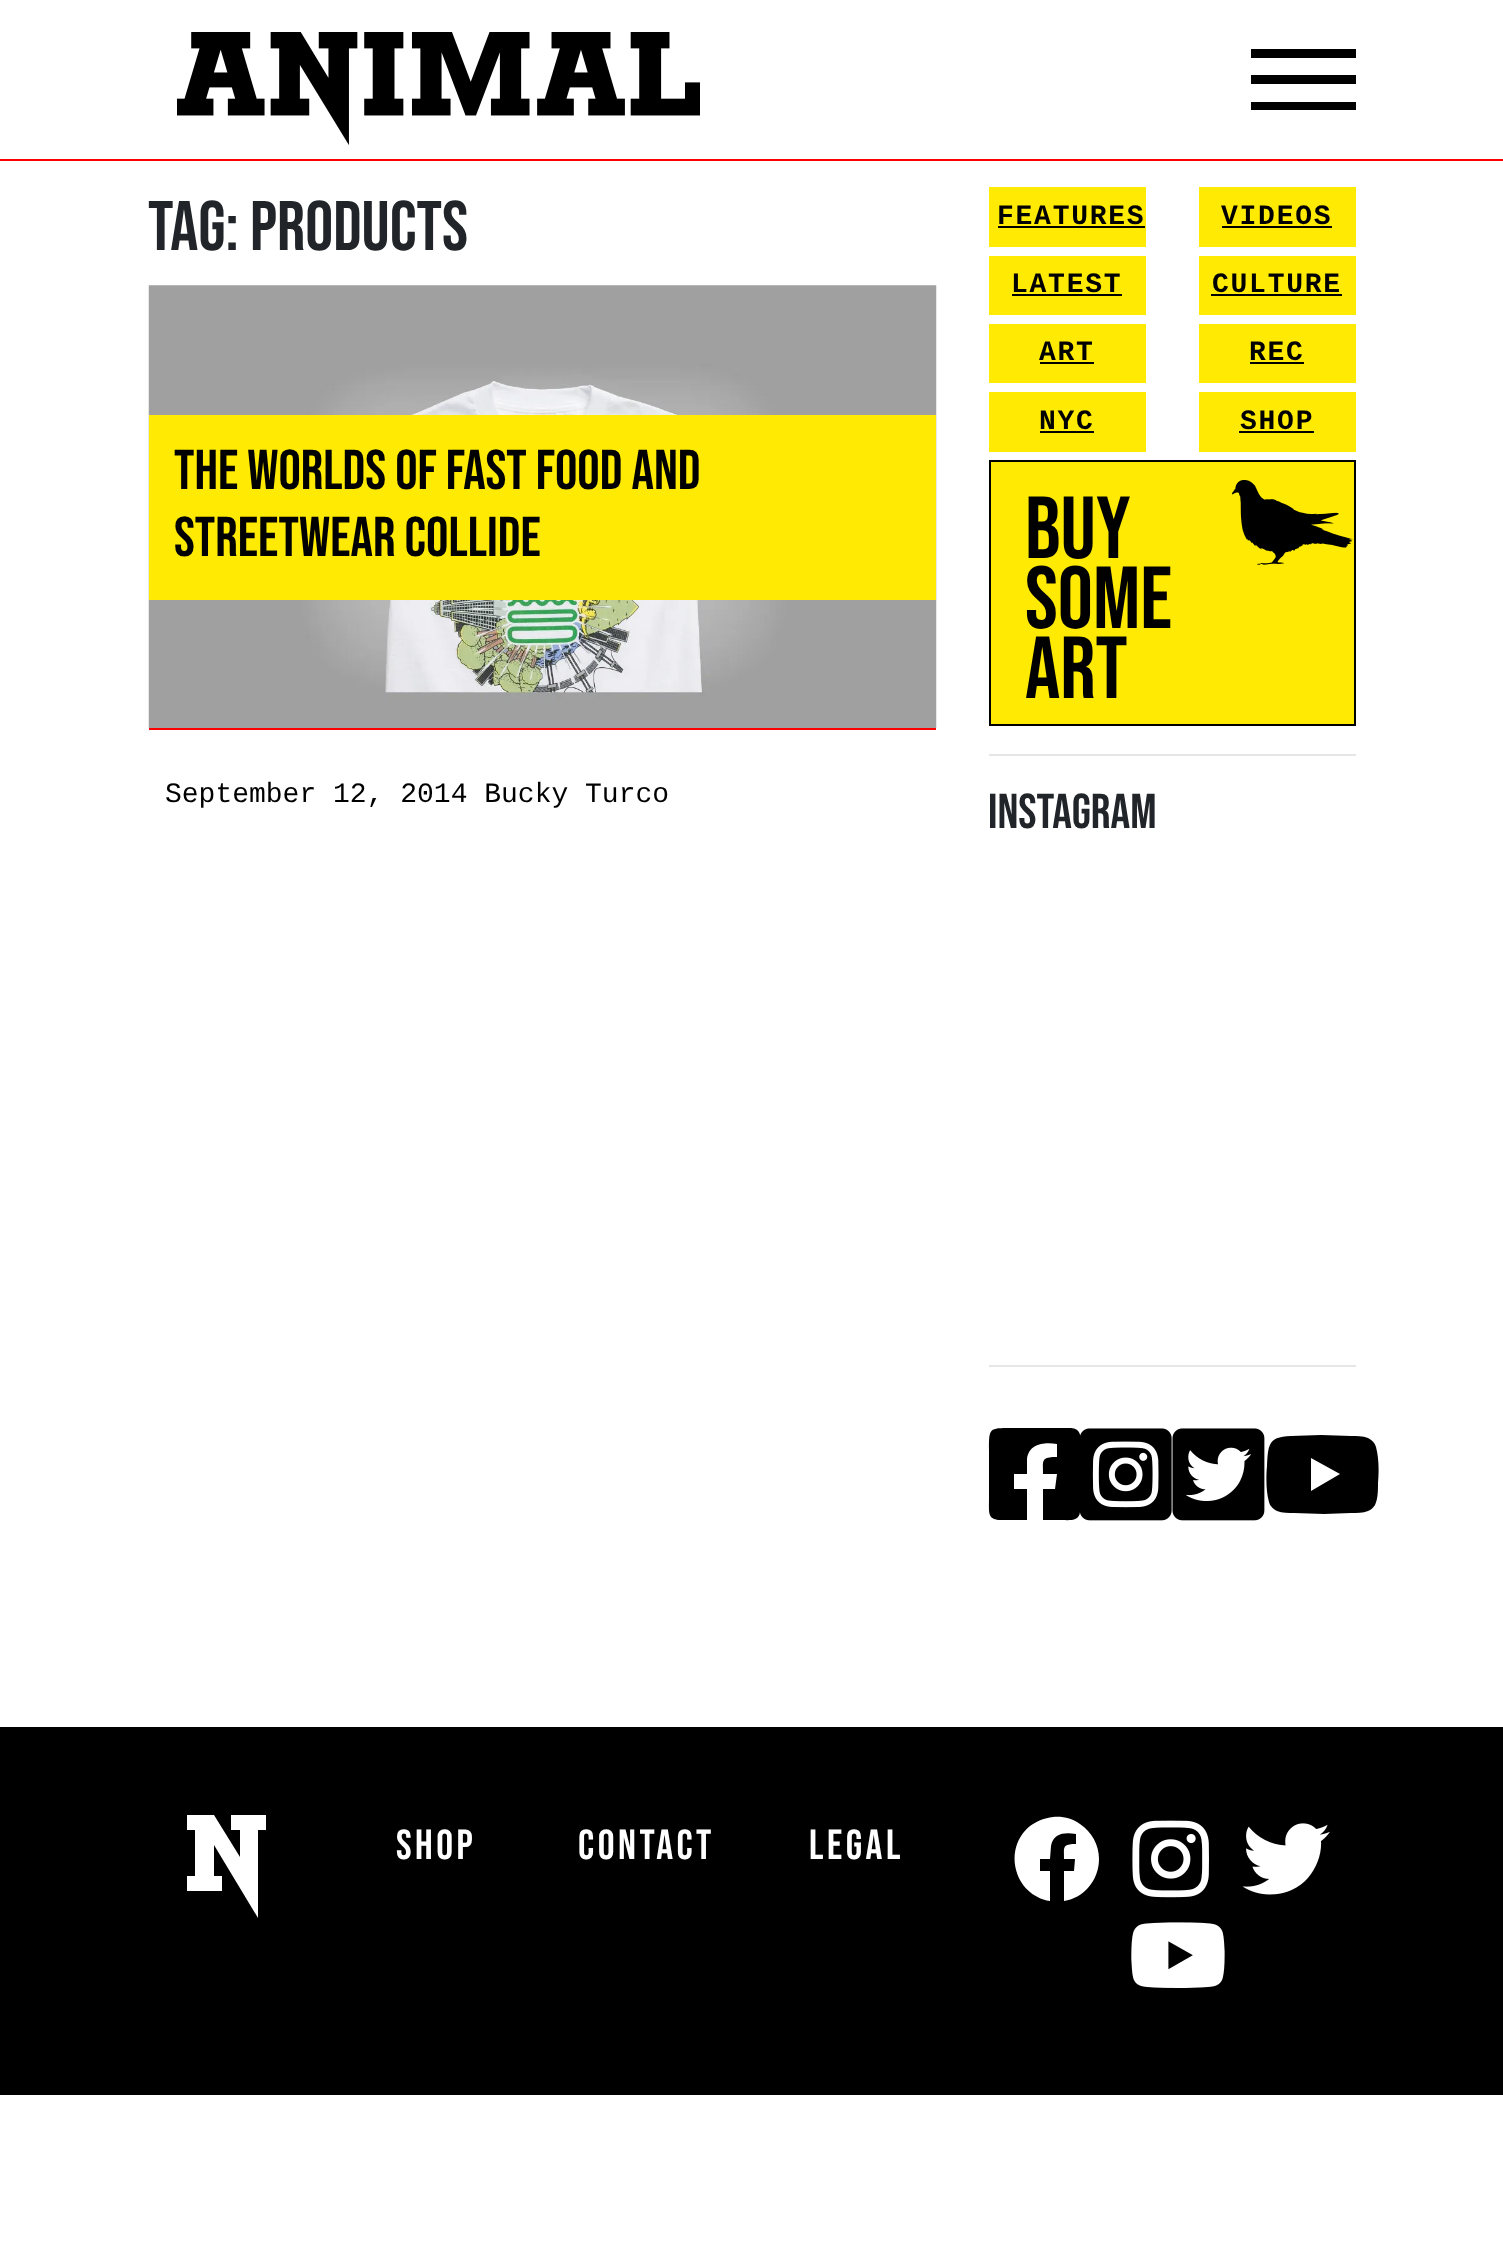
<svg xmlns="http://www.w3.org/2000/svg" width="1503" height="2265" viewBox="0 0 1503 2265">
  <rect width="100%" height="100%" fill="rgb(255,255,255)"/>
  <rect x="0" y="159" width="1503" height="2" fill="rgb(255,0,0)"/>
  <image x="177" y="32" width="523" height="113" href="pic1.png"/>
  <rect x="1251" y="49" width="105" height="9" fill="rgb(0,0,0)"/>
  <rect x="1251" y="75" width="105" height="9" fill="rgb(0,0,0)"/>
  <rect x="1251" y="102" width="105" height="8" fill="rgb(0,0,0)"/>
  <text x="148" y="250" font-family="Bebas Neue" font-size="70" fill="rgb(33,37,41)">Tag: Products</text>
  <rect x="149" y="728" width="787" height="2" fill="rgb(255,0,0)"/>
  <image x="148" y="285" width="789" height="443" href="pic2.png"/>
  <rect x="149" y="415" width="787" height="185" fill="rgb(255,234,3)"/>
  <g font-family="Bebas Neue" font-size="56" fill="rgb(0,0,0)">
    <text>
      <tspan x="174" y="489">The Worlds of Fast Food and</tspan>
      <tspan x="174" y="556">Streetwear Collide</tspan>
    </text>
  </g>
  <text x="165" y="802" font-family="Liberation Mono" font-size="28" fill="rgb(0,0,0)">September 12, 2014 Bucky Turco</text>
  <rect x="989" y="187" width="157" height="60" fill="rgb(255,234,3)"/>
  <text x="997" y="224" font-family="Liberation Mono" font-size="28" font-weight="bold" letter-spacing="1.75" fill="rgb(0,0,0)">FEATURES</text>
  <rect x="998" y="226" width="147" height="2" fill="rgb(0,0,0)"/>
  <rect x="989" y="256" width="157" height="59" fill="rgb(255,234,3)"/>
  <text x="1011" y="292" font-family="Liberation Mono" font-size="28" font-weight="bold" letter-spacing="1.75" fill="rgb(0,0,0)">LATEST</text>
  <rect x="1012" y="294" width="110" height="2" fill="rgb(0,0,0)"/>
  <rect x="989" y="324" width="157" height="59" fill="rgb(255,234,3)"/>
  <text x="1039" y="360" font-family="Liberation Mono" font-size="28" font-weight="bold" letter-spacing="1.75" fill="rgb(0,0,0)">ART</text>
  <rect x="1040" y="362" width="54" height="2" fill="rgb(0,0,0)"/>
  <rect x="989" y="392" width="157" height="60" fill="rgb(255,234,3)"/>
  <text x="1039" y="429" font-family="Liberation Mono" font-size="28" font-weight="bold" letter-spacing="1.75" fill="rgb(0,0,0)">NYC</text>
  <rect x="1040" y="431" width="54" height="2" fill="rgb(0,0,0)"/>
  <rect x="1199" y="187" width="157" height="60" fill="rgb(255,234,3)"/>
  <text x="1221" y="224" font-family="Liberation Mono" font-size="28" font-weight="bold" letter-spacing="1.75" fill="rgb(0,0,0)">VIDEOS</text>
  <rect x="1222" y="226" width="110" height="2" fill="rgb(0,0,0)"/>
  <rect x="1199" y="256" width="157" height="59" fill="rgb(255,234,3)"/>
  <text x="1212" y="292" font-family="Liberation Mono" font-size="28" font-weight="bold" letter-spacing="1.75" fill="rgb(0,0,0)">CULTURE</text>
  <rect x="1211" y="294" width="131" height="2" fill="rgb(0,0,0)"/>
  <rect x="1199" y="324" width="157" height="59" fill="rgb(255,234,3)"/>
  <text x="1249" y="360" font-family="Liberation Mono" font-size="28" font-weight="bold" letter-spacing="1.75" fill="rgb(0,0,0)">REC</text>
  <rect x="1250" y="362" width="54" height="2" fill="rgb(0,0,0)"/>
  <rect x="1199" y="392" width="157" height="60" fill="rgb(255,234,3)"/>
  <text x="1240" y="429" font-family="Liberation Mono" font-size="28" font-weight="bold" letter-spacing="1.75" fill="rgb(0,0,0)">SHOP</text>
  <rect x="1239" y="431" width="75" height="2" fill="rgb(0,0,0)"/>
  <rect x="990" y="461" width="365" height="264" fill="rgb(255,234,3)" stroke="rgb(0,0,0)" stroke-width="2"/>
  <g font-family="Bebas Neue" font-size="88" fill="rgb(0,0,0)">
    <text>
      <tspan x="1025" y="558">Buy</tspan>
      <tspan x="1025" y="628">Some</tspan>
      <tspan x="1025" y="698">Art</tspan>
    </text>
  </g>
  <image x="1232" y="480" width="121" height="85" href="pic3.png"/>
  <rect x="989" y="754" width="367" height="2" fill="rgb(230,230,230)"/>
  <text x="988" y="828" font-family="Bebas Neue" font-size="49" fill="rgb(33,37,41)">Instagram</text>
  <rect x="989" y="1365" width="367" height="2" fill="rgb(230,230,230)"/>
  <path d="M1071 1428C1083 1428 1081 1443 1081 1450L1080 1512C1079 1522 1068 1520 1061 1520H1043V1489H1055L1057 1474H1043C1043 1460 1041 1457 1057 1457V1444C1045 1442 1029 1443 1027 1459V1474H1014V1489H1027V1520H1003C987 1520 989 1514 989 1498V1450C989 1428 989 1428 1011 1428Z" fill="rgb(0,0,0)"/>
  <image x="1080" y="1428" width="92" height="93" href="pic4.png"/>
  <image x="1172" y="1428" width="93" height="93" href="pic5.png"/>
  <path d="M1376 1447C1379 1458 1379 1472 1378 1483C1378 1490 1378 1499 1375 1505C1373 1508 1371 1510 1368 1511C1363 1513 1357 1513 1351 1513L1324 1514L1294 1513C1289 1513 1282 1513 1277 1511C1273 1509 1270 1506 1269 1502C1266 1492 1266 1476 1267 1466C1268 1443 1269 1437 1291 1436L1321 1435L1351 1436C1356 1436 1363 1436 1368 1438C1372 1440 1375 1443 1376 1447ZM1311 1491L1340 1474L1311 1458Z" fill="rgb(0,0,0)"/>
  <rect x="0" y="1727" width="1503" height="368" fill="rgb(0,0,0)"/>
  <path d="M187 1876H195V1830H187V1815H214L240 1857V1830H231V1815H266V1830H258V1918L214 1845V1876H222V1891H187Z" fill="rgb(255,255,255)"/>
  <g font-family="Bebas Neue" font-size="42" letter-spacing="3.5" fill="rgb(255,255,255)">
    <text x="396" y="1859">Shop</text>
    <text x="578" y="1859">Contact</text>
    <text x="809" y="1859">Legal</text>
  </g>
  <path d="M1099 1859C1099 1880 1084 1898 1064 1901V1871H1074L1075 1859H1064C1064 1847 1062 1844 1076 1844V1834C1065 1832 1053 1833 1051 1846L1050 1859H1040V1871H1050V1901C1014 1895 1002 1849 1030 1826C1037 1821 1044 1818 1053 1817C1062 1816 1072 1818 1080 1824C1092 1832 1099 1845 1099 1859Z" fill="rgb(255,255,255)"/>
  <image x="1132" y="1820" width="77" height="78" href="pic6.png"/>
  <image x="1242" y="1823" width="88" height="72" href="pic7.png"/>
  <image x="1131" y="1922" width="94" height="66" href="pic8.png"/>
</svg>
